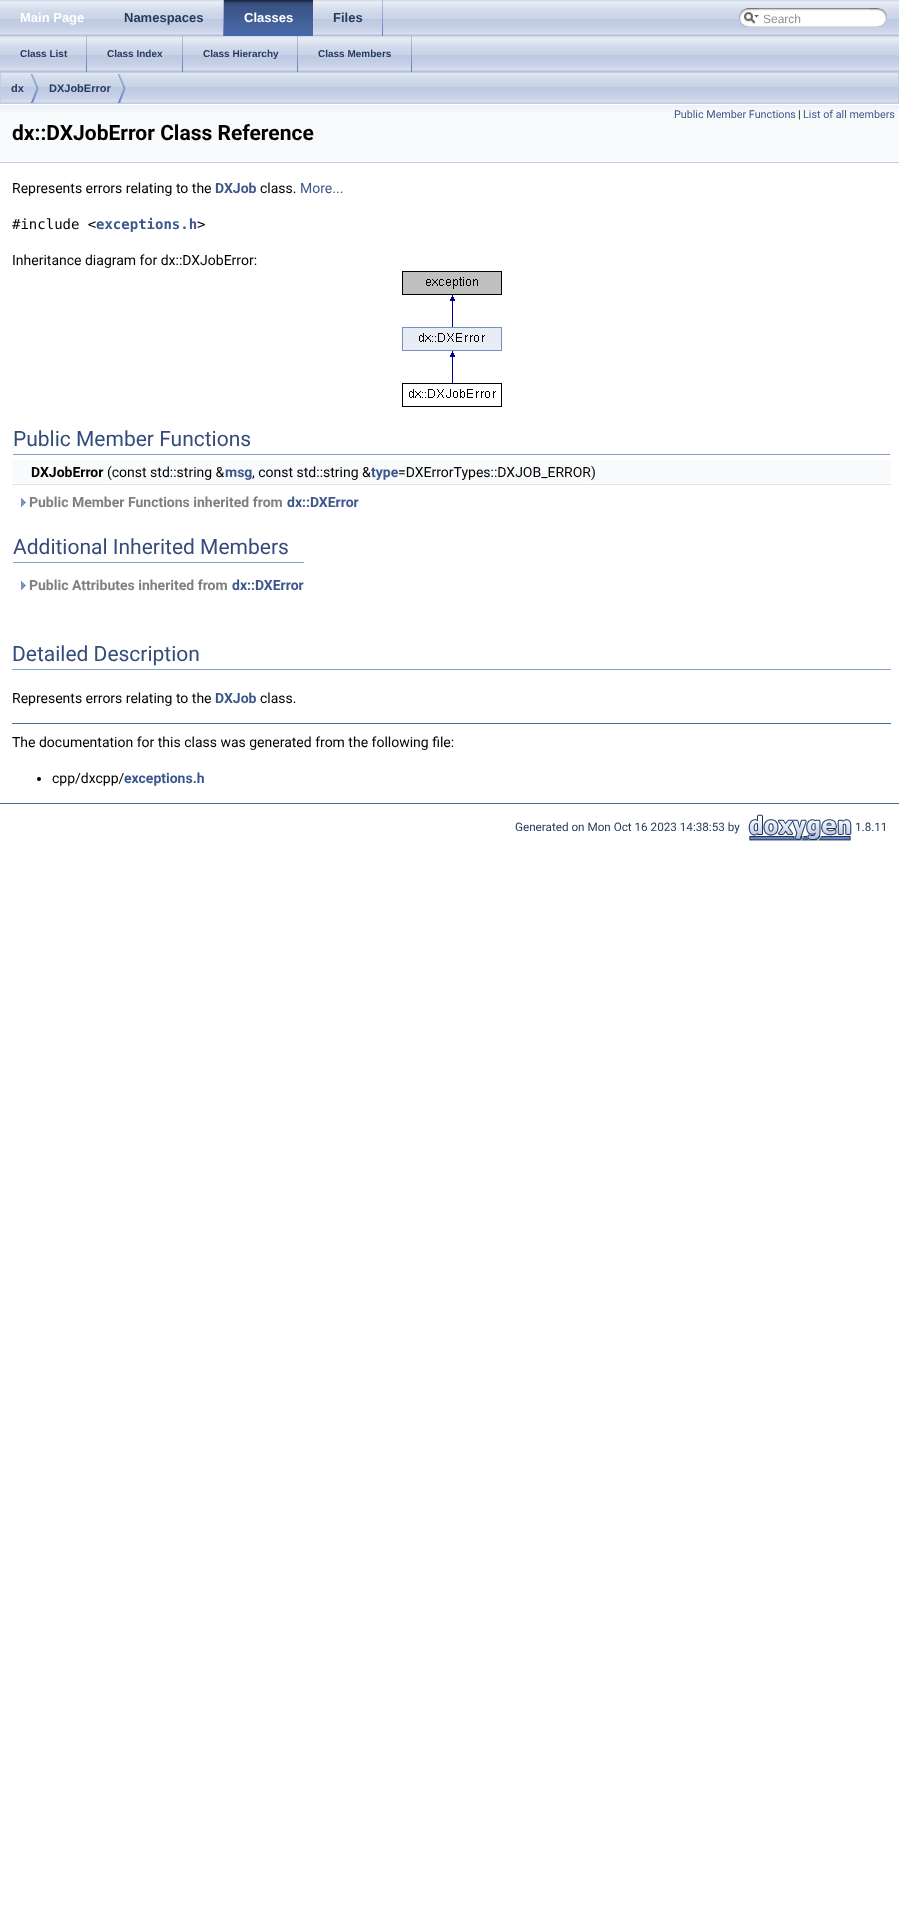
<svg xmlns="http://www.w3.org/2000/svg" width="899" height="1926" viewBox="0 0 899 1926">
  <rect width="100%" height="100%" fill="rgb(255,255,255)"/>
  <image x="0" y="0" width="899" height="36" href="pic1.png"/>
  <text x="20" y="22" font-family="Liberation Sans" font-size="13" font-weight="bold" fill="rgb(255,255,255)">Main Page</text>
  <image x="223" y="0" width="1" height="36" href="pic2.png"/>
  <text x="124" y="22" font-family="Liberation Sans" font-size="13" font-weight="bold" fill="rgb(40,58,93)">Namespaces</text>
  <image x="224" y="0" width="89" height="36" href="pic3.png"/>
  <text x="244" y="22" font-family="Liberation Sans" font-size="13" font-weight="bold" fill="rgb(255,255,255)">Classes</text>
  <image x="382" y="0" width="1" height="36" href="pic2.png"/>
  <text x="333" y="22" font-family="Liberation Sans" font-size="13" font-weight="bold" fill="rgb(40,58,93)">Files</text>
  <image x="739" y="8" width="20" height="19" href="pic4.png"/>
  <image x="744" y="12" width="15" height="12" href="pic5.png"/>
  <image x="759" y="8" width="110" height="19" href="pic6.png"/>
  <text x="763" y="23" font-family="Liberation Sans" font-size="12" fill="rgb(144,144,144)">Search</text>
  <image x="869" y="8" width="18" height="19" href="pic7.png"/>
  <image x="0" y="36" width="899" height="36" href="pic1.png"/>
  <image x="86" y="36" width="1" height="36" href="pic2.png"/>
  <text x="20" y="57" font-family="Liberation Sans" font-size="10" font-weight="bold" fill="rgb(40,58,93)">Class List</text>
  <image x="182" y="36" width="1" height="36" href="pic2.png"/>
  <text x="107" y="57" font-family="Liberation Sans" font-size="10" font-weight="bold" fill="rgb(40,58,93)">Class Index</text>
  <image x="297" y="36" width="1" height="36" href="pic2.png"/>
  <text x="203" y="57" font-family="Liberation Sans" font-size="10" font-weight="bold" fill="rgb(40,58,93)">Class Hierarchy</text>
  <image x="411" y="36" width="1" height="36" href="pic2.png"/>
  <text x="318" y="57" font-family="Liberation Sans" font-size="10" font-weight="bold" fill="rgb(40,58,93)">Class Members</text>
  <image x="1" y="73" width="897" height="30" href="pic8.png"/>
  <rect x="0.5" y="72.5" width="898" height="31" fill="none" stroke="rgb(194,205,228)"/>
  <image x="31" y="74" width="8" height="29" href="pic9.png"/>
  <text x="11" y="92" font-family="Liberation Sans" font-size="11" font-weight="bold" fill="rgb(40,58,93)">dx</text>
  <image x="118" y="74" width="8" height="29" href="pic9.png"/>
  <text x="49" y="92" font-family="Liberation Sans" font-size="11" font-weight="bold" fill="rgb(40,58,93)">DXJobError</text>
  <rect x="0" y="112" width="899" height="50" fill="rgb(249,250,252)"/>
  <image x="0" y="104" width="899" height="8" href="pic10.png"/>
  <rect x="0" y="162" width="899" height="1" fill="rgb(196,207,229)"/>
  <text x="674" y="118" font-family="Roboto" font-size="10.75" fill="rgb(61,87,140)">Public Member Functions</text>
  <text x="798" y="118" font-family="Roboto" font-size="10.75" fill="rgb(0,0,0)">|</text>
  <text x="803" y="118" font-family="Roboto" font-size="10.75" fill="rgb(61,87,140)">List of all members</text>
  <text x="12" y="140" font-family="Roboto" font-size="21" font-weight="bold" fill="rgb(0,0,0)">dx::DXJobError Class Reference</text>
  <text x="12" y="193" font-family="Roboto" font-size="14" fill="rgb(0,0,0)">Represents errors relating to the</text>
  <text x="215" y="193" font-family="Roboto" font-size="14" font-weight="bold" fill="rgb(61,87,140)">DXJob</text>
  <text x="260" y="193" font-family="Roboto" font-size="14" fill="rgb(0,0,0)">class.</text>
  <text x="300" y="193" font-family="Roboto" font-size="14" fill="rgb(61,87,140)">More...</text>
  <text x="12" y="229" font-family="DejaVu Sans Mono" font-size="14" fill="rgb(0,0,0)">#include &lt;</text>
  <text x="96" y="229" font-family="DejaVu Sans Mono" font-size="14" font-weight="bold" fill="rgb(61,87,140)">exceptions.h</text>
  <text x="197" y="229" font-family="DejaVu Sans Mono" font-size="14" fill="rgb(0,0,0)">&gt;</text>
  <text x="12" y="265" font-family="Roboto" font-size="14" fill="rgb(0,0,0)">Inheritance diagram for dx::DXJobError:</text>
  <image x="402" y="271" width="100" height="136" href="pic11.png"/>
  <rect x="13" y="454" width="877" height="1" fill="rgb(135,158,203)"/>
  <text x="13" y="446" font-family="Roboto" font-size="21" fill="rgb(53,76,123)">Public Member Functions</text>
  <rect x="12" y="460" width="879" height="23" fill="rgb(249,250,252)"/>
  <text x="31" y="477" font-family="Roboto" font-size="14" font-weight="bold" fill="rgb(0,0,0)">DXJobError</text>
  <text x="107" y="477" font-family="Roboto" font-size="14" fill="rgb(0,0,0)">(const std::string &amp;</text>
  <text x="225" y="477" font-family="Roboto" font-size="14" font-weight="bold" fill="rgb(61,87,140)">msg</text>
  <text x="252" y="477" font-family="Roboto" font-size="14" fill="rgb(0,0,0)">, const std::string &amp;</text>
  <text x="371" y="477" font-family="Roboto" font-size="14" font-weight="bold" fill="rgb(61,87,140)">type</text>
  <text x="398" y="477" font-family="Roboto" font-size="14" fill="rgb(0,0,0)">=DXErrorTypes::DXJOB_ERROR)</text>
  <rect x="12" y="484" width="879" height="1" fill="rgb(222,228,240)"/>
  <image x="21" y="498" width="5" height="9" href="pic12.png"/>
  <text x="29" y="507" font-family="Roboto" font-size="14" font-weight="bold" fill="rgb(128,128,128)">Public Member Functions inherited from</text>
  <text x="287" y="507" font-family="Roboto" font-size="14" font-weight="bold" fill="rgb(61,87,140)">dx::DXError</text>
  <rect x="13" y="562" width="291" height="1" fill="rgb(135,158,203)"/>
  <text x="13" y="554" font-family="Roboto" font-size="21" fill="rgb(53,76,123)">Additional Inherited Members</text>
  <image x="21" y="581" width="5" height="9" href="pic12.png"/>
  <text x="29" y="590" font-family="Roboto" font-size="14" font-weight="bold" fill="rgb(128,128,128)">Public Attributes inherited from</text>
  <text x="232" y="590" font-family="Roboto" font-size="14" font-weight="bold" fill="rgb(61,87,140)">dx::DXError</text>
  <rect x="12" y="669" width="879" height="1" fill="rgb(135,158,203)"/>
  <text x="12" y="661" font-family="Roboto" font-size="21" fill="rgb(53,76,123)">Detailed Description</text>
  <text x="12" y="703" font-family="Roboto" font-size="14" fill="rgb(0,0,0)">Represents errors relating to the</text>
  <text x="215" y="703" font-family="Roboto" font-size="14" font-weight="bold" fill="rgb(61,87,140)">DXJob</text>
  <text x="260" y="703" font-family="Roboto" font-size="14" fill="rgb(0,0,0)">class.</text>
  <rect x="12" y="723" width="879" height="1" fill="rgb(74,106,170)"/>
  <text x="12" y="747" font-family="Roboto" font-size="14" fill="rgb(0,0,0)">The documentation for this class was generated from the following file:</text>
  <circle cx="39" cy="779" r="2" fill="rgb(0,0,0)"/>
  <text x="52" y="783" font-family="Roboto" font-size="14" fill="rgb(0,0,0)">cpp/dxcpp/</text>
  <text x="124" y="783" font-family="Roboto" font-size="14" font-weight="bold" fill="rgb(61,87,140)">exceptions.h</text>
  <rect x="0" y="803" width="899" height="1" fill="rgb(74,106,170)"/>
  <text x="515" y="831" font-family="Roboto" font-size="11.7" fill="rgb(40,58,93)">Generated on Mon Oct 16 2023 14:38:53 by</text>
  <image x="748" y="814" width="104" height="27" href="pic13.png"/>
  <text x="855" y="831" font-family="Roboto" font-size="11.7" fill="rgb(40,58,93)">1.8.11</text>
</svg>
